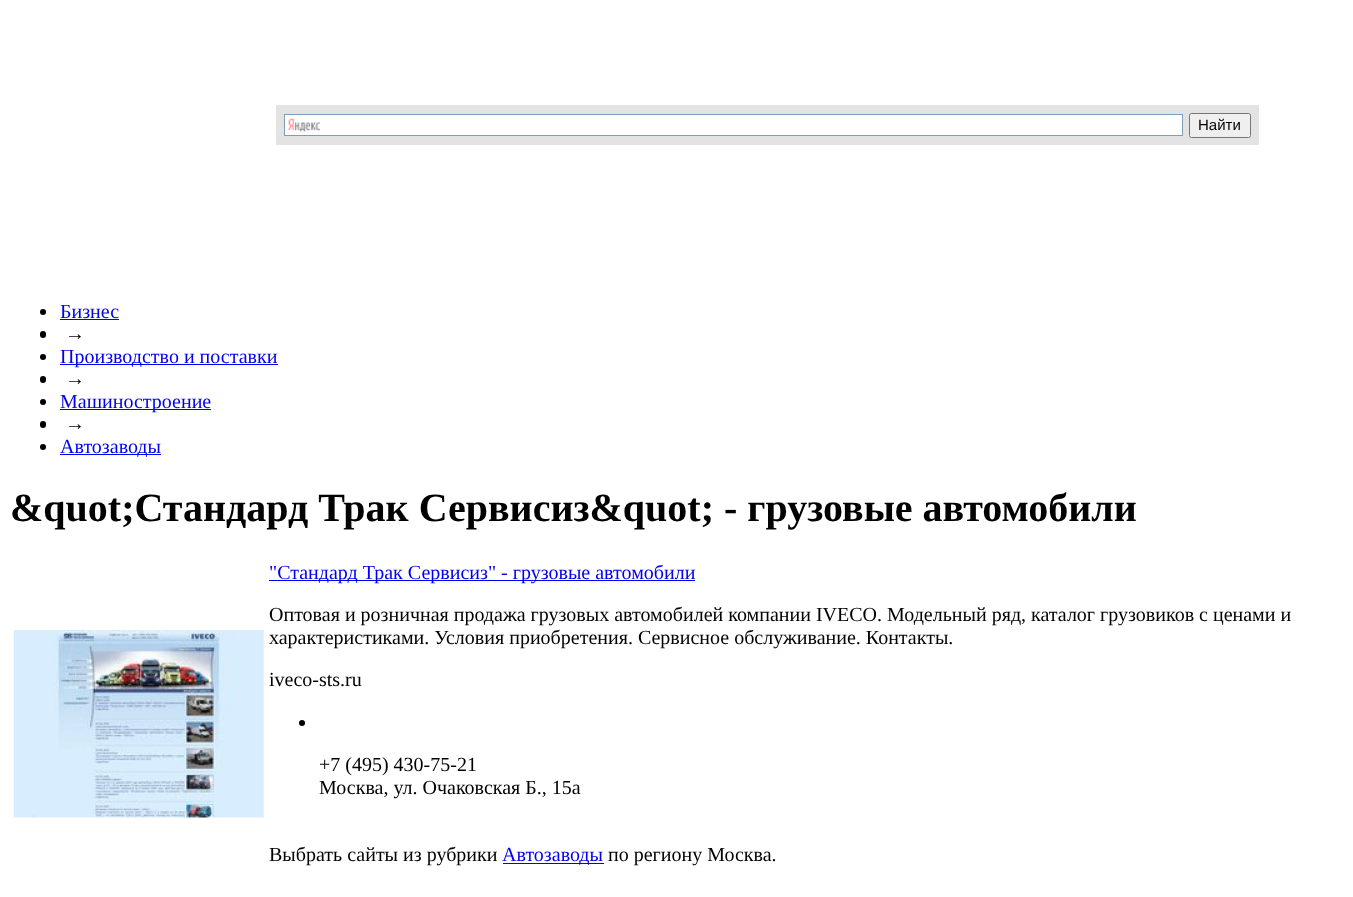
<svg xmlns="http://www.w3.org/2000/svg" width="1353" height="897" viewBox="0 0 1353 897">
  <rect width="100%" height="100%" fill="rgb(255,255,255)"/>
  <rect x="276" y="105" width="983" height="40" fill="rgb(227,227,227)"/>
  <rect x="285" y="115" width="897" height="20" fill="rgb(255,255,255)"/>
  <image x="287" y="118" width="33" height="15" href="pic1.png"/>
  <rect x="284.5" y="114.5" width="898" height="21" fill="none" stroke="rgb(127,157,185)"/>
  <rect x="1189.5" y="113.5" width="61" height="24" rx="2" fill="rgb(239,239,239)" stroke="rgb(118,118,118)"/>
  <text x="1198" y="130" font-family="Liberation Sans" font-size="15" fill="rgb(0,0,0)">Найти</text>
  <circle cx="43" cy="312" r="3" fill="rgb(0,0,0)"/>
  <text x="60" y="318" font-family="Liberation Serif" font-size="20" fill="rgb(0,0,238)">Бизнес</text>
  <rect x="60" y="319" width="59" height="1" fill="rgb(0,0,238)"/>
  <rect x="40" y="331" width="6" height="7" rx="3" fill="rgb(0,0,0)"/>
  <text x="65" y="340" font-family="Liberation Serif" font-size="20" fill="rgb(0,0,0)">→</text>
  <circle cx="43" cy="357" r="3" fill="rgb(0,0,0)"/>
  <rect x="60" y="364" width="218" height="1" fill="rgb(0,0,238)"/>
  <text x="60" y="363" font-family="Liberation Serif" font-size="20" fill="rgb(0,0,238)">Производство и поставки</text>
  <rect x="40" y="376" width="6" height="7" rx="3" fill="rgb(0,0,0)"/>
  <text x="65" y="385" font-family="Liberation Serif" font-size="20" fill="rgb(0,0,0)">→</text>
  <circle cx="43" cy="402" r="3" fill="rgb(0,0,0)"/>
  <rect x="60" y="409" width="151" height="1" fill="rgb(0,0,238)"/>
  <text x="60" y="408" font-family="Liberation Serif" font-size="20" fill="rgb(0,0,238)">Машиностроение</text>
  <rect x="40" y="421" width="6" height="7" rx="3" fill="rgb(0,0,0)"/>
  <text x="65" y="430" font-family="Liberation Serif" font-size="20" fill="rgb(0,0,0)">→</text>
  <circle cx="43" cy="447" r="3" fill="rgb(0,0,0)"/>
  <rect x="60" y="454" width="101" height="1" fill="rgb(0,0,238)"/>
  <text x="60" y="453" font-family="Liberation Serif" font-size="20" fill="rgb(0,0,238)">Автозаводы</text>
  <text x="10" y="521" font-family="Liberation Serif" font-size="40" font-weight="bold" fill="rgb(0,0,0)">&amp;quot;Стандард Трак Сервисиз&amp;quot; - грузовые автомобили</text>
  <image x="13" y="630" width="251" height="188" href="pic2.png"/>
  <rect x="269" y="580" width="426" height="1" fill="rgb(0,0,238)"/>
  <text x="269" y="579" font-family="Liberation Serif" font-size="20" fill="rgb(0,0,238)">"Стандард Трак Сервисиз" - грузовые автомобили</text>
  <g font-family="Liberation Serif" font-size="20" fill="rgb(0,0,0)">
    <text>
      <tspan x="269" y="621">Оптовая и розничная продажа грузовых автомобилей компании IVECO. Модельный ряд, каталог грузовиков с ценами и</tspan>
      <tspan x="269" y="644">характеристиками. Условия приобретения. Сервисное обслуживание. Контакты.</tspan>
    </text>
    <text x="269" y="686">iveco-sts.ru</text>
  </g>
  <circle cx="302" cy="723" r="3" fill="rgb(0,0,0)"/>
  <g font-family="Liberation Serif" font-size="20" fill="rgb(0,0,0)">
    <text>
      <tspan x="319" y="771">+7 (495) 430-75-21</tspan>
      <tspan x="319" y="794">Москва, ул. Очаковская Б., 15а</tspan>
    </text>
    <text x="269" y="861">Выбрать сайты из рубрики</text>
  </g>
  <rect x="503" y="863" width="101" height="1" fill="rgb(0,0,238)"/>
  <text x="502" y="861" font-family="Liberation Serif" font-size="20" fill="rgb(0,0,238)">Автозаводы</text>
  <text x="608" y="861" font-family="Liberation Serif" font-size="20" fill="rgb(0,0,0)">по региону Москва.</text>
</svg>
